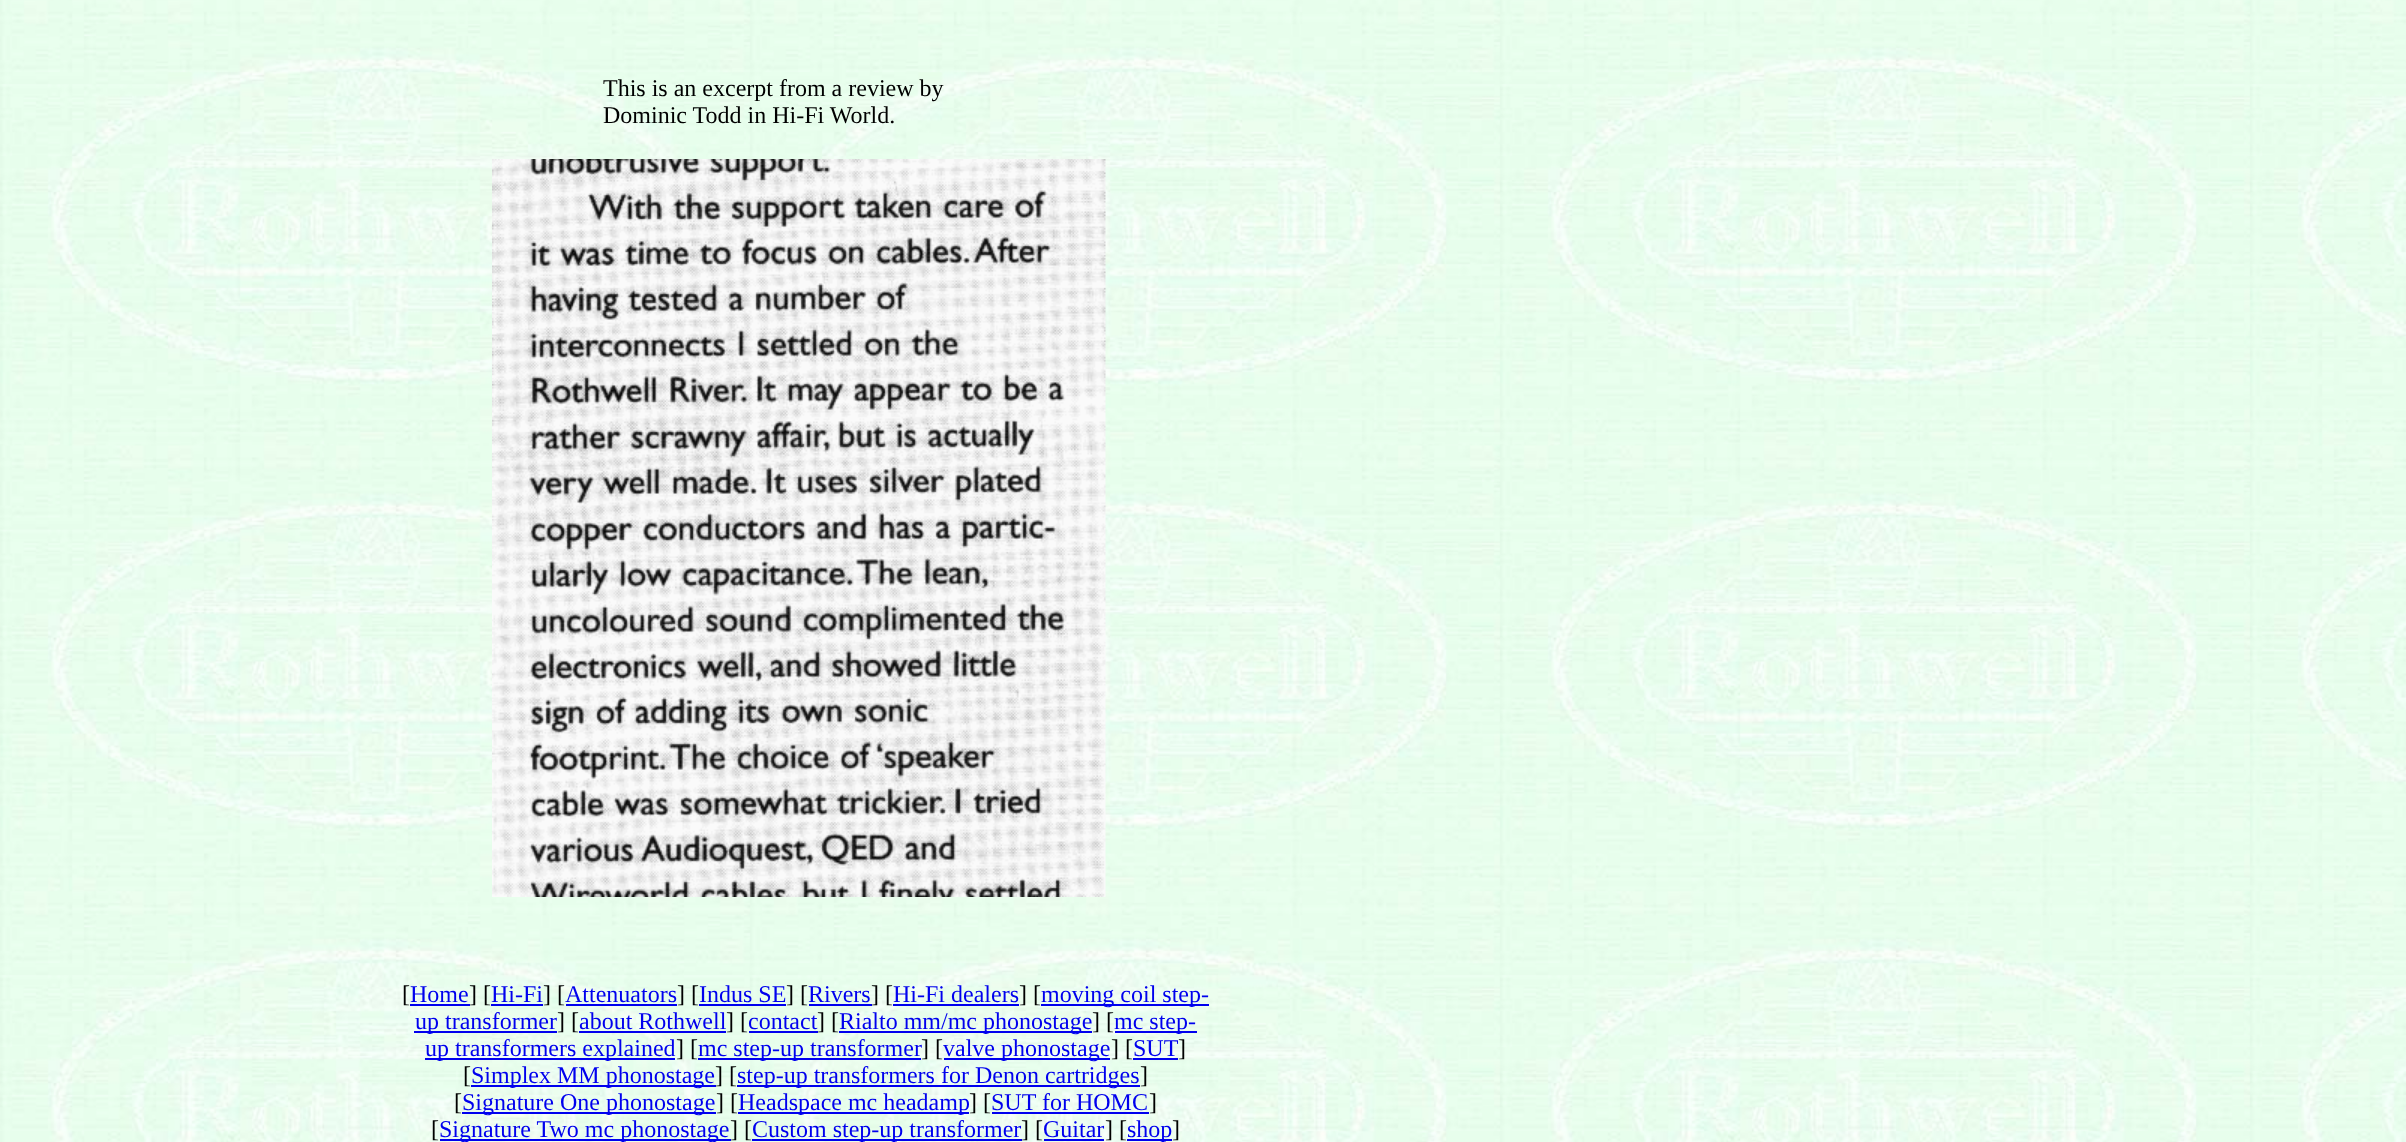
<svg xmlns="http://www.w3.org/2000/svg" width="2406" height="1142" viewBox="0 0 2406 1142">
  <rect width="100%" height="100%" fill="rgb(255,255,255)"/>
  <image x="0" y="0" width="2406" height="1142" href="pic1.png"/>
  <g font-family="Liberation Serif" font-size="24" fill="rgb(0,0,0)">
    <text>
      <tspan x="603" y="96">This is an excerpt from a review by</tspan>
      <tspan x="603" y="123">Dominic Todd in Hi-Fi World.</tspan>
    </text>
  </g>
  <image x="492" y="159" width="614" height="738" href="pic2.png"/>
  <text x="402" y="1002" font-family="Liberation Serif" font-size="24" fill="rgb(0,0,0)">[</text>
  <text x="410" y="1002" font-family="Liberation Serif" font-size="24" fill="rgb(0,0,238)">Home</text>
  <rect x="410" y="1004" width="60" height="2" fill="rgb(0,0,238)"/>
  <text x="469" y="1002" font-family="Liberation Serif" font-size="24" fill="rgb(0,0,0)">] [</text>
  <text x="491" y="1002" font-family="Liberation Serif" font-size="24" fill="rgb(0,0,238)">Hi-Fi</text>
  <rect x="491" y="1004" width="52" height="2" fill="rgb(0,0,238)"/>
  <text x="543" y="1002" font-family="Liberation Serif" font-size="24" fill="rgb(0,0,0)">] [</text>
  <text x="565" y="1002" font-family="Liberation Serif" font-size="24" fill="rgb(0,0,238)">Attenuators</text>
  <rect x="566" y="1004" width="111" height="2" fill="rgb(0,0,238)"/>
  <text x="677" y="1002" font-family="Liberation Serif" font-size="24" fill="rgb(0,0,0)">] [</text>
  <text x="699" y="1002" font-family="Liberation Serif" font-size="24" fill="rgb(0,0,238)">Indus SE</text>
  <rect x="699" y="1004" width="87" height="2" fill="rgb(0,0,238)"/>
  <text x="786" y="1002" font-family="Liberation Serif" font-size="24" fill="rgb(0,0,0)">] [</text>
  <text x="808" y="1002" font-family="Liberation Serif" font-size="24" fill="rgb(0,0,238)">Rivers</text>
  <rect x="809" y="1004" width="63" height="2" fill="rgb(0,0,238)"/>
  <text x="871" y="1002" font-family="Liberation Serif" font-size="24" fill="rgb(0,0,0)">] [</text>
  <text x="893" y="1002" font-family="Liberation Serif" font-size="24" fill="rgb(0,0,238)">Hi-Fi dealers</text>
  <rect x="893" y="1004" width="126" height="2" fill="rgb(0,0,238)"/>
  <text x="1019" y="1002" font-family="Liberation Serif" font-size="24" fill="rgb(0,0,0)">] [</text>
  <rect x="1041" y="1004" width="168" height="2" fill="rgb(0,0,238)"/>
  <text x="1041" y="1002" font-family="Liberation Serif" font-size="24" fill="rgb(0,0,238)">moving coil step-</text>
  <rect x="414" y="1031" width="143" height="2" fill="rgb(0,0,238)"/>
  <text x="415" y="1029" font-family="Liberation Serif" font-size="24" fill="rgb(0,0,238)">up transformer</text>
  <text x="557" y="1029" font-family="Liberation Serif" font-size="24" fill="rgb(0,0,0)">] [</text>
  <text x="579" y="1029" font-family="Liberation Serif" font-size="24" fill="rgb(0,0,238)">about Rothwell</text>
  <rect x="579" y="1031" width="147" height="2" fill="rgb(0,0,238)"/>
  <text x="726" y="1029" font-family="Liberation Serif" font-size="24" fill="rgb(0,0,0)">] [</text>
  <text x="748" y="1029" font-family="Liberation Serif" font-size="24" fill="rgb(0,0,238)">contact</text>
  <rect x="749" y="1031" width="69" height="2" fill="rgb(0,0,238)"/>
  <text x="817" y="1029" font-family="Liberation Serif" font-size="24" fill="rgb(0,0,0)">] [</text>
  <rect x="839" y="1031" width="253" height="2" fill="rgb(0,0,238)"/>
  <text x="839" y="1029" font-family="Liberation Serif" font-size="24" fill="rgb(0,0,238)">Rialto mm/mc phonostage</text>
  <text x="1092" y="1029" font-family="Liberation Serif" font-size="24" fill="rgb(0,0,0)">] [</text>
  <rect x="1115" y="1031" width="82" height="2" fill="rgb(0,0,238)"/>
  <text x="1114" y="1029" font-family="Liberation Serif" font-size="24" fill="rgb(0,0,238)">mc step-</text>
  <rect x="425" y="1058" width="250" height="2" fill="rgb(0,0,238)"/>
  <text x="425" y="1056" font-family="Liberation Serif" font-size="24" fill="rgb(0,0,238)">up transformers explained</text>
  <text x="676" y="1056" font-family="Liberation Serif" font-size="24" fill="rgb(0,0,0)">] [</text>
  <rect x="698" y="1058" width="223" height="2" fill="rgb(0,0,238)"/>
  <text x="698" y="1056" font-family="Liberation Serif" font-size="24" fill="rgb(0,0,238)">mc step-up transformer</text>
  <text x="921" y="1056" font-family="Liberation Serif" font-size="24" fill="rgb(0,0,0)">] [</text>
  <rect x="944" y="1058" width="166" height="2" fill="rgb(0,0,238)"/>
  <text x="943" y="1056" font-family="Liberation Serif" font-size="24" fill="rgb(0,0,238)">valve phonostage</text>
  <text x="1111" y="1056" font-family="Liberation Serif" font-size="24" fill="rgb(0,0,0)">] [</text>
  <text x="1133" y="1056" font-family="Liberation Serif" font-size="24" fill="rgb(0,0,238)">SUT</text>
  <rect x="1133" y="1058" width="45" height="2" fill="rgb(0,0,238)"/>
  <g font-family="Liberation Serif" font-size="24" fill="rgb(0,0,0)">
    <text x="1178" y="1056">]</text>
    <text x="463" y="1083">[</text>
  </g>
  <rect x="471" y="1085" width="245" height="2" fill="rgb(0,0,238)"/>
  <text x="471" y="1083" font-family="Liberation Serif" font-size="24" fill="rgb(0,0,238)">Simplex MM phonostage</text>
  <text x="715" y="1083" font-family="Liberation Serif" font-size="24" fill="rgb(0,0,0)">] [</text>
  <rect x="737" y="1085" width="403" height="2" fill="rgb(0,0,238)"/>
  <text x="737" y="1083" font-family="Liberation Serif" font-size="24" fill="rgb(0,0,238)">step-up transformers for Denon cartridges</text>
  <g font-family="Liberation Serif" font-size="24" fill="rgb(0,0,0)">
    <text x="1140" y="1083">]</text>
    <text x="454" y="1110">[</text>
  </g>
  <rect x="462" y="1112" width="254" height="2" fill="rgb(0,0,238)"/>
  <text x="462" y="1110" font-family="Liberation Serif" font-size="24" fill="rgb(0,0,238)">Signature One phonostage</text>
  <text x="716" y="1110" font-family="Liberation Serif" font-size="24" fill="rgb(0,0,0)">] [</text>
  <rect x="738" y="1112" width="231" height="2" fill="rgb(0,0,238)"/>
  <text x="738" y="1110" font-family="Liberation Serif" font-size="24" fill="rgb(0,0,238)">Headspace mc headamp</text>
  <text x="969" y="1110" font-family="Liberation Serif" font-size="24" fill="rgb(0,0,0)">] [</text>
  <text x="991" y="1110" font-family="Liberation Serif" font-size="24" fill="rgb(0,0,238)">SUT for HOMC</text>
  <rect x="992" y="1112" width="157" height="2" fill="rgb(0,0,238)"/>
  <g font-family="Liberation Serif" font-size="24" fill="rgb(0,0,0)">
    <text x="1149" y="1110">]</text>
    <text x="431" y="1137">[</text>
  </g>
  <rect x="440" y="1139" width="291" height="2" fill="rgb(0,0,238)"/>
  <text x="439" y="1137" font-family="Liberation Serif" font-size="24" fill="rgb(0,0,238)">Signature Two mc phonostage</text>
  <text x="730" y="1137" font-family="Liberation Serif" font-size="24" fill="rgb(0,0,0)">] [</text>
  <rect x="752" y="1139" width="270" height="2" fill="rgb(0,0,238)"/>
  <text x="752" y="1137" font-family="Liberation Serif" font-size="24" fill="rgb(0,0,238)">Custom step-up transformer</text>
  <text x="1021" y="1137" font-family="Liberation Serif" font-size="24" fill="rgb(0,0,0)">] [</text>
  <text x="1043" y="1137" font-family="Liberation Serif" font-size="24" fill="rgb(0,0,238)">Guitar</text>
  <rect x="1044" y="1139" width="60" height="2" fill="rgb(0,0,238)"/>
  <text x="1105" y="1137" font-family="Liberation Serif" font-size="24" fill="rgb(0,0,0)">] [</text>
  <rect x="1127" y="1139" width="45" height="2" fill="rgb(0,0,238)"/>
  <text x="1127" y="1137" font-family="Liberation Serif" font-size="24" fill="rgb(0,0,238)">shop</text>
  <text x="1172" y="1137" font-family="Liberation Serif" font-size="24" fill="rgb(0,0,0)">]</text>
</svg>
